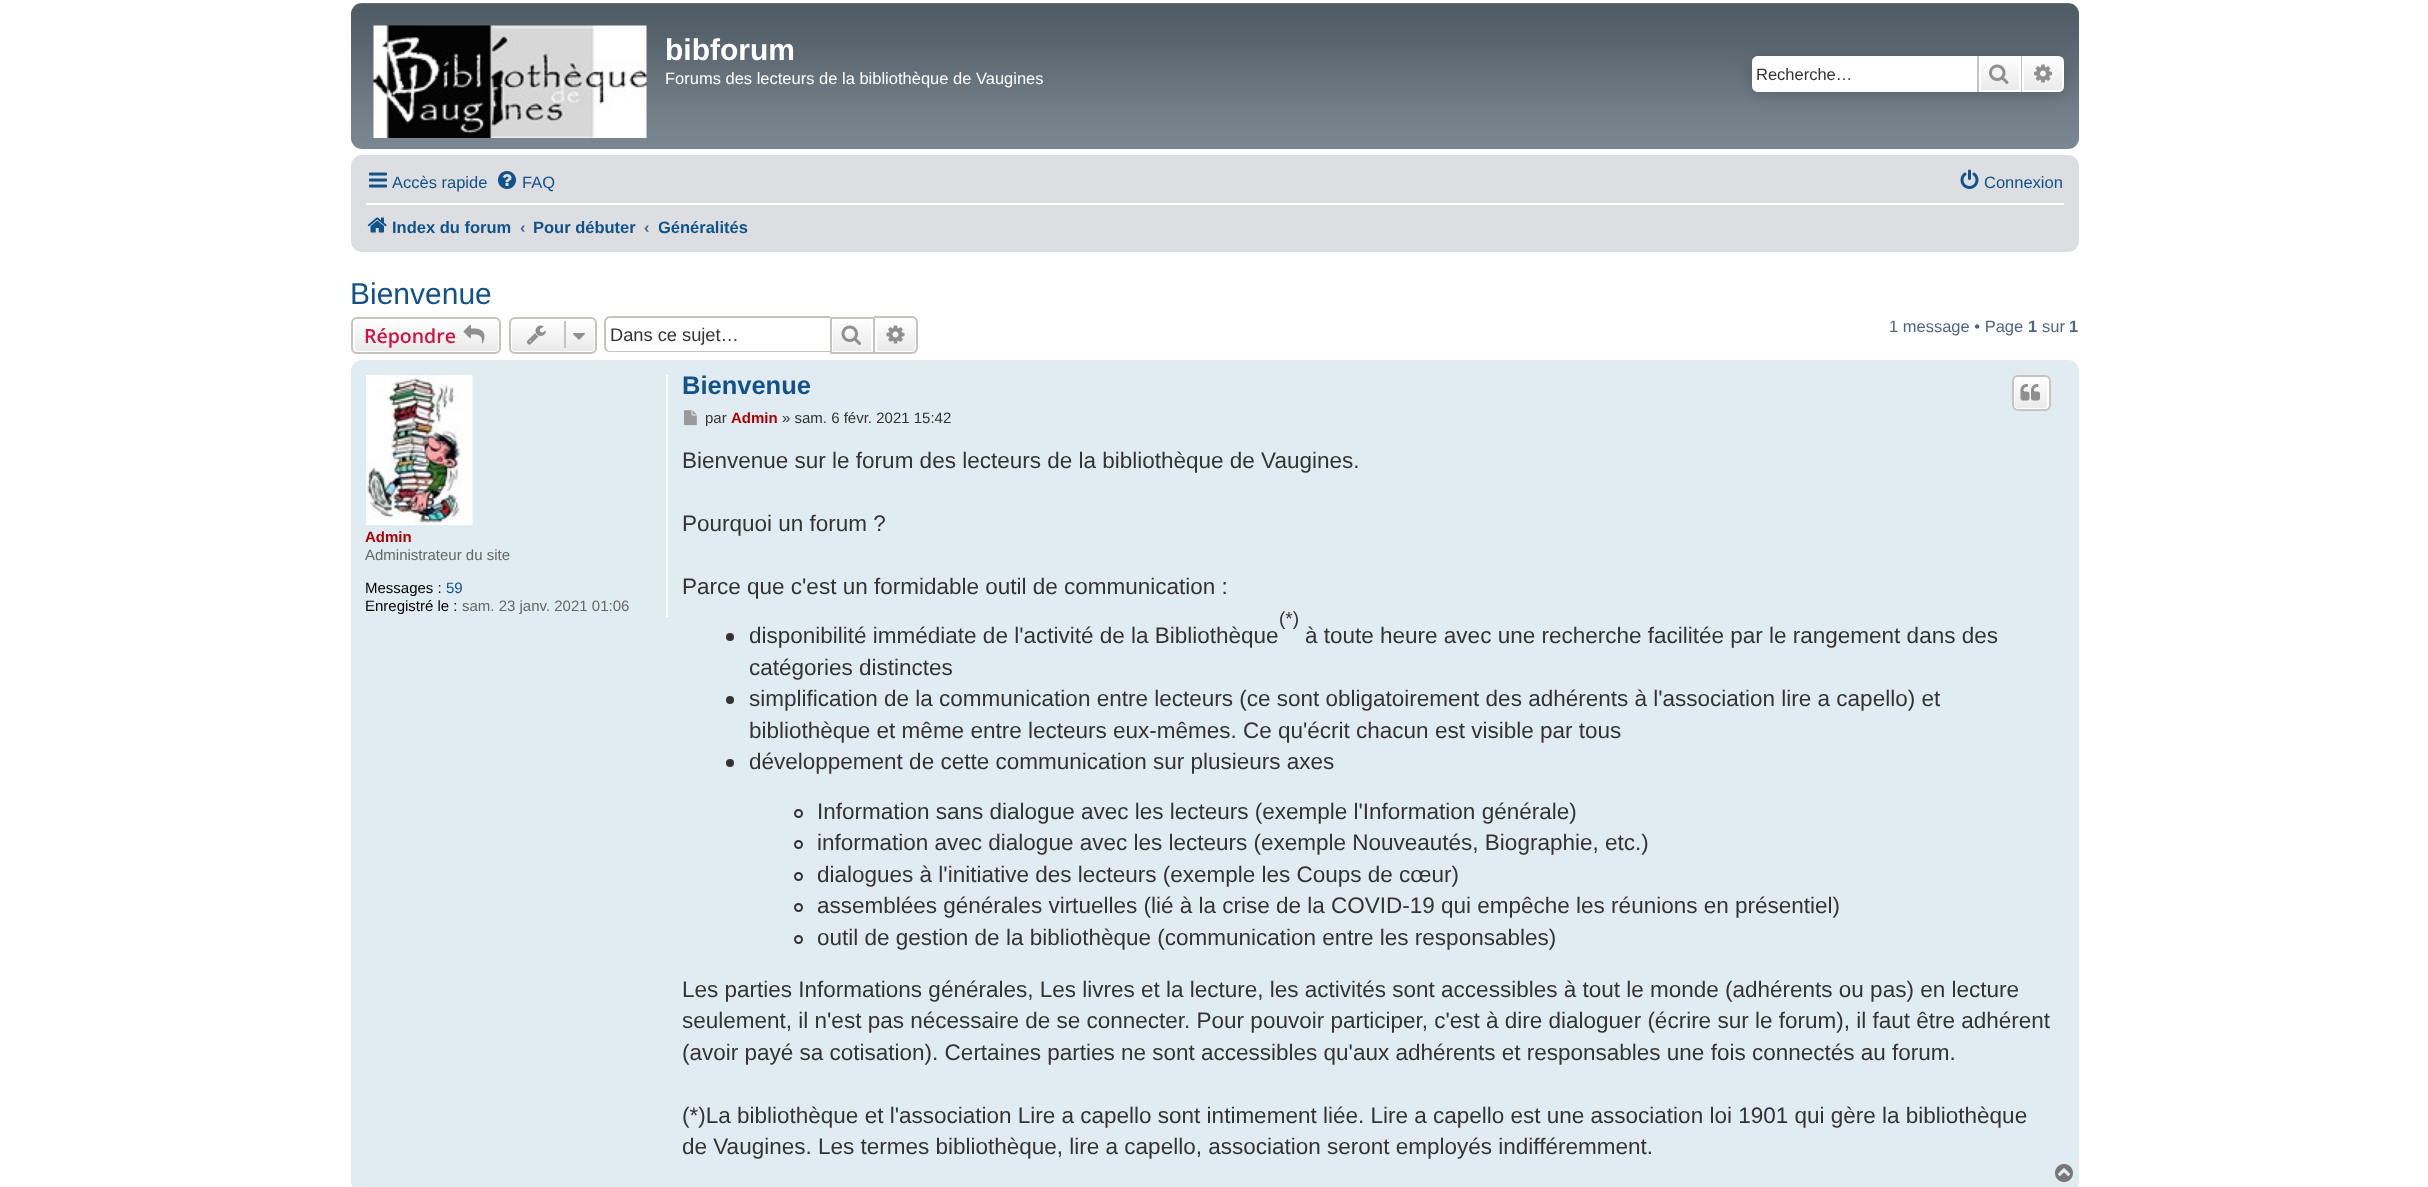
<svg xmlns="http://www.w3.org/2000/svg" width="2428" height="1187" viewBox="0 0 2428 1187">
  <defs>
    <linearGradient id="g1" gradientUnits="userSpaceOnUse" x1="1215" y1="3" x2="1215" y2="149"><stop offset="0" stop-color="rgb(110,119,127)"/><stop offset="0.01" stop-color="rgb(80,92,101)"/><stop offset="0.2" stop-color="rgb(86,98,107)"/><stop offset="0.75" stop-color="rgb(115,127,136)"/><stop offset="1" stop-color="rgb(124,136,145)"/></linearGradient>
    <linearGradient id="g2" gradientUnits="userSpaceOnUse" x1="2000" y1="56" x2="2000" y2="92"><stop offset="0" stop-color="rgb(255,255,255)"/><stop offset="1" stop-color="rgb(233,233,233)"/></linearGradient>
    <linearGradient id="g3" gradientUnits="userSpaceOnUse" x1="2043" y1="56" x2="2043" y2="92"><stop offset="0" stop-color="rgb(255,255,255)"/><stop offset="1" stop-color="rgb(233,233,233)"/></linearGradient>
    <clipPath id="clip1"><rect x="659" y="209" width="90" height="36"/></clipPath>
    <clipPath id="clip2"><rect x="351" y="317" width="150" height="37" rx="6"/></clipPath>
    <linearGradient id="g4" gradientUnits="userSpaceOnUse" x1="426" y1="318" x2="426" y2="353"><stop offset="0" stop-color="rgb(255,255,255)"/><stop offset="1" stop-color="rgb(233,233,233)"/></linearGradient>
    <clipPath id="clip3"><rect x="509" y="317" width="88" height="37" rx="6"/></clipPath>
    <linearGradient id="g5" gradientUnits="userSpaceOnUse" x1="553" y1="318" x2="553" y2="353"><stop offset="0" stop-color="rgb(255,255,255)"/><stop offset="1" stop-color="rgb(233,233,233)"/></linearGradient>
    <linearGradient id="g6" gradientUnits="userSpaceOnUse" x1="852" y1="318" x2="852" y2="353"><stop offset="0" stop-color="rgb(255,255,255)"/><stop offset="1" stop-color="rgb(233,233,233)"/></linearGradient>
    <linearGradient id="g7" gradientUnits="userSpaceOnUse" x1="896" y1="318" x2="896" y2="353"><stop offset="0" stop-color="rgb(255,255,255)"/><stop offset="1" stop-color="rgb(233,233,233)"/></linearGradient>
    <clipPath id="clip4"><rect x="2012" y="375" width="39" height="36" rx="6"/></clipPath>
    <linearGradient id="g8" gradientUnits="userSpaceOnUse" x1="2031" y1="377" x2="2031" y2="410"><stop offset="0" stop-color="rgb(255,255,255)"/><stop offset="1" stop-color="rgb(233,233,233)"/></linearGradient>
    <clipPath id="clip5"><rect x="683" y="444" width="1372" height="719"/></clipPath>
  </defs>
  <rect width="100%" height="100%" fill="rgb(255,255,255)"/>
  <rect x="351" y="3" width="1728" height="146" rx="11" fill="url(#g1)"/>
  <image x="373" y="25" width="274" height="113" href="pic1.png"/>
  <text x="665" y="60" font-family="Liberation Sans" font-size="30" font-weight="bold" fill="rgb(255,255,255)">bibforum</text>
  <text x="665" y="84" font-family="Liberation Sans" font-size="16.5" fill="rgb(255,255,255)">Forums des lecteurs de la bibliothèque de Vaugines</text>
  <rect x="1752" y="56" width="312" height="36" rx="6" fill="rgb(80,92,101)" filter="blur(7.5px)"/>
  <path d="M1758 56H1977V92H1758C1754.5 92 1752 89.5 1752 86V62C1752 58.5 1754.5 56 1758 56Z" fill="rgb(255,255,255)"/>
  <text x="1756" y="80" font-family="Liberation Sans" font-size="16.5" fill="rgb(51,51,51)">Recherche…</text>
  <rect x="1981" y="58" width="38" height="32" fill="url(#g2)"/>
  <rect x="1980" y="57" width="40" height="34" fill="none" stroke="rgb(255,255,255)" stroke-width="2"/>
  <rect x="2021" y="56" width="1" height="36" fill="rgb(199,195,191)"/>
  <rect x="1977" y="56" width="2" height="36" fill="rgb(199,195,191)"/>
  <image x="1989" y="64" width="20" height="20" href="pic2.png"/>
  <path d="M2023 57H2058C2061 57 2063 59 2063 62V86C2063 89 2061 91 2058 91H2023Z" fill="url(#g3)" stroke="rgb(255,255,255)" stroke-width="2"/>
  <image x="2034" y="64" width="18" height="19" href="pic3.png"/>
  <rect x="351" y="155" width="1728" height="97" rx="11" fill="rgb(220,222,226)"/>
  <image x="369" y="172" width="18" height="16" href="pic4.png"/>
  <text x="392" y="188" font-family="Liberation Sans" font-size="16.5" fill="rgb(16,82,137)">Accès rapide</text>
  <image x="498" y="171" width="18" height="18" href="pic5.png"/>
  <text x="522" y="188" font-family="Liberation Sans" font-size="16.5" fill="rgb(16,82,137)">FAQ</text>
  <image x="1960" y="169" width="19" height="20" href="pic6.png"/>
  <text x="1984" y="188" font-family="Liberation Sans" font-size="16.5" fill="rgb(16,82,137)">Connexion</text>
  <rect x="366" y="203" width="1698" height="2" fill="rgb(255,255,255)"/>
  <image x="367" y="217" width="20" height="16" href="pic7.png"/>
  <text x="392" y="233" font-family="Liberation Sans" font-size="16.5" font-weight="bold" fill="rgb(16,82,137)">Index du forum</text>
  <text x="520" y="233" font-family="Liberation Sans" font-size="16.5" font-weight="bold" fill="rgb(83,100,130)">‹</text>
  <text x="533" y="233" font-family="Liberation Sans" font-size="16.5" font-weight="bold" fill="rgb(16,82,137)">Pour débuter</text>
  <text x="644" y="233" font-family="Liberation Sans" font-size="16.5" font-weight="bold" fill="rgb(83,100,130)">‹</text>
  <g clip-path="url(#clip1)">
    <text x="658" y="233" font-family="Liberation Sans" font-size="16.5" font-weight="bold" fill="rgb(16,82,137)">Généralités</text>
  </g>
  <text x="350" y="304" font-family="Liberation Sans" font-size="30" fill="rgb(16,82,137)">Bienvenue</text>
  <g clip-path="url(#clip2)">
    <rect x="351" y="318" width="150" height="35" fill="url(#g4)"/>
  </g>
  <rect x="354" y="319" width="145" height="33" rx="4" fill="none" stroke="rgb(255,255,255)" stroke-width="2"/>
  <rect x="352" y="318" width="148" height="35" rx="5" fill="none" stroke="rgb(199,195,191)" stroke-width="2"/>
  <text x="364" y="343" font-family="Open Sans" font-size="19.5" font-weight="600" fill="rgb(211,17,65)">Répondre</text>
  <image x="463" y="324" width="22" height="20" href="pic8.png"/>
  <g clip-path="url(#clip3)">
    <rect x="509" y="318" width="88" height="35" fill="url(#g5)"/>
  </g>
  <rect x="511" y="319" width="84" height="33" rx="4" fill="none" stroke="rgb(255,255,255)" stroke-width="2"/>
  <rect x="510" y="318" width="86" height="35" rx="5" fill="none" stroke="rgb(199,195,191)" stroke-width="2"/>
  <image x="526" y="325" width="20" height="20" href="pic9.png"/>
  <rect x="564" y="321" width="2" height="27" fill="rgb(199,195,191)"/>
  <image x="573" y="333" width="12" height="7" href="pic10.png"/>
  <path d="M610 316H830V352H610C607 352 604 350 604 346V322C604 319 607 316 610 316ZM610 318H830V351H610C608 351 606 349 606 346V322C606 320 608 318 610 318Z" fill="rgb(199,195,191)" fill-rule="evenodd"/>
  <text x="610" y="341" font-family="Liberation Sans" font-size="18.25" fill="rgb(51,51,51)">Dans ce sujet…</text>
  <rect x="833" y="322" width="38" height="29" fill="url(#g6)"/>
  <rect x="831" y="318" width="43" height="35" fill="none" stroke="rgb(199,195,191)" stroke-width="2"/>
  <image x="841" y="325" width="20" height="20" href="pic11.png"/>
  <path d="M876 319H912C914 319 916 321 916 323V348C916 350 914 352 912 352H876Z" fill="url(#g7)" stroke="rgb(255,255,255)" stroke-width="2"/>
  <path d="M874 316H912C915 316 918 319 918 322V348C918 351 915 354 912 354H874ZM874 318H912C914 318 916 320 916 322V348C916 350 914 352 912 352H874Z" fill="rgb(199,195,191)" fill-rule="evenodd"/>
  <image x="886" y="325" width="19" height="19" href="pic12.png"/>
  <text x="1889" y="332" font-family="Liberation Sans" font-size="16.5" fill="rgb(83,100,130)">1 message • Page</text>
  <text x="2028" y="332" font-family="Liberation Sans" font-size="16.5" font-weight="bold" fill="rgb(83,100,130)">1</text>
  <text x="2042" y="332" font-family="Liberation Sans" font-size="16.5" fill="rgb(83,100,130)">sur</text>
  <text x="2069" y="332" font-family="Liberation Sans" font-size="16.5" font-weight="bold" fill="rgb(83,100,130)">1</text>
  <rect x="351" y="360" width="1728" height="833" rx="11" fill="rgb(225,235,242)"/>
  <rect x="666" y="375" width="2" height="242" fill="rgb(255,255,255)"/>
  <image x="366" y="375" width="107" height="150" href="pic13.png"/>
  <text x="365" y="542" font-family="Liberation Sans" font-size="15" font-weight="bold" fill="rgb(170,0,0)">Admin</text>
  <text x="365" y="560" font-family="Liberation Sans" font-size="15" fill="rgb(102,102,102)">Administrateur du site</text>
  <text x="365" y="593" font-family="Liberation Sans" font-size="15" fill="rgb(0,0,0)">Messages :</text>
  <text x="446" y="593" font-family="Liberation Sans" font-size="15" fill="rgb(16,82,137)">59</text>
  <text x="365" y="611" font-family="Liberation Sans" font-size="15" fill="rgb(0,0,0)">Enregistré le :</text>
  <text x="462" y="611" font-family="Liberation Sans" font-size="15" fill="rgb(102,102,102)">sam. 23 janv. 2021 01:06</text>
  <text x="682" y="394" font-family="Liberation Sans" font-size="25.5" font-weight="bold" fill="rgb(16,82,137)">Bienvenue</text>
  <g clip-path="url(#clip4)">
    <rect x="2012" y="377" width="39" height="33" fill="url(#g8)"/>
  </g>
  <rect x="2014" y="378" width="34" height="31" rx="4" fill="none" stroke="rgb(255,255,255)" stroke-width="2"/>
  <rect x="2013" y="376" width="37" height="34" rx="5" fill="none" stroke="rgb(199,195,191)" stroke-width="2"/>
  <image x="2020" y="384" width="20" height="17" href="pic14.png"/>
  <image x="684" y="410" width="13" height="16" href="pic15.png"/>
  <text x="705" y="423" font-family="Liberation Sans" font-size="15" fill="rgb(51,51,51)">par</text>
  <text x="731" y="423" font-family="Liberation Sans" font-size="15" font-weight="bold" fill="rgb(170,0,0)">Admin</text>
  <text x="782" y="423" font-family="Liberation Sans" font-size="15" fill="rgb(51,51,51)">» sam. 6 févr. 2021 15:42</text>
  <g font-family="Liberation Sans" font-size="22.5" fill="rgb(51,51,51)">
    <text x="682" y="468">Bienvenue sur le forum des lecteurs de la bibliothèque de Vaugines.</text>
    <text x="682" y="531">Pourquoi un forum ?</text>
    <text x="682" y="594">Parce que c'est un formidable outil de communication :</text>
  </g>
  <text x="1279" y="625" font-family="Liberation Sans" font-size="19" fill="rgb(51,51,51)">(*)</text>
  <circle cx="730" cy="637" r="4" fill="rgb(51,51,51)"/>
  <g font-family="Liberation Sans" font-size="22.5" fill="rgb(51,51,51)">
    <text x="749" y="643">disponibilité immédiate de l'activité de la Bibliothèque</text>
    <text x="1305" y="643">à toute heure avec une recherche facilitée par le rangement dans des</text>
    <text x="749" y="675">catégories distinctes</text>
  </g>
  <circle cx="730" cy="700" r="4" fill="rgb(51,51,51)"/>
  <g font-family="Liberation Sans" font-size="22.5" fill="rgb(51,51,51)">
    <text>
      <tspan x="749" y="706">simplification de la communication entre lecteurs (ce sont obligatoirement des adhérents à l'association lire a capello) et</tspan>
      <tspan x="749" y="738">bibliothèque et même entre lecteurs eux-mêmes. Ce qu'écrit chacun est visible par tous</tspan>
    </text>
  </g>
  <circle cx="730" cy="763" r="4" fill="rgb(51,51,51)"/>
  <text x="749" y="769" font-family="Liberation Sans" font-size="22.5" fill="rgb(51,51,51)">développement de cette communication sur plusieurs axes</text>
  <circle cx="798.5" cy="813.5" r="3.5" fill="none" stroke="rgb(51,51,51)" stroke-width="2"/>
  <text x="817" y="819" font-family="Liberation Sans" font-size="22.5" fill="rgb(51,51,51)">Information sans dialogue avec les lecteurs (exemple l'Information générale)</text>
  <circle cx="798.5" cy="844.5" r="3.5" fill="none" stroke="rgb(51,51,51)" stroke-width="2"/>
  <text x="817" y="850" font-family="Liberation Sans" font-size="22.5" fill="rgb(51,51,51)">information avec dialogue avec les lecteurs (exemple Nouveautés, Biographie, etc.)</text>
  <circle cx="798.5" cy="876.5" r="3.5" fill="none" stroke="rgb(51,51,51)" stroke-width="2"/>
  <text x="817" y="882" font-family="Liberation Sans" font-size="22.5" fill="rgb(51,51,51)">dialogues à l'initiative des lecteurs (exemple les Coups de cœur)</text>
  <circle cx="798.5" cy="907.5" r="3.5" fill="none" stroke="rgb(51,51,51)" stroke-width="2"/>
  <text x="817" y="913" font-family="Liberation Sans" font-size="22.5" fill="rgb(51,51,51)">assemblées générales virtuelles (lié à la crise de la COVID-19 qui empêche les réunions en présentiel)</text>
  <circle cx="798.5" cy="939.5" r="3.5" fill="none" stroke="rgb(51,51,51)" stroke-width="2"/>
  <g font-family="Liberation Sans" font-size="22.5" fill="rgb(51,51,51)">
    <text x="817" y="945">outil de gestion de la bibliothèque (communication entre les responsables)</text>
    <text x="682" y="997">Les parties Informations générales, Les livres et la lecture, les activités sont accessibles à tout le monde (adhérents ou pas) en lecture</text>
  </g>
  <g clip-path="url(#clip5)">
    <text x="682" y="1028" font-family="Liberation Sans" font-size="22.5" fill="rgb(51,51,51)">seulement, il n'est pas nécessaire de se connecter. Pour pouvoir participer, c'est à dire dialoguer (écrire sur le forum), il faut être adhérent</text>
  </g>
  <g font-family="Liberation Sans" font-size="22.5" fill="rgb(51,51,51)">
    <text x="682" y="1060">(avoir payé sa cotisation). Certaines parties ne sont accessibles qu'aux adhérents et responsables une fois connectés au forum.</text>
    <text x="682" y="1123">(*)La bibliothèque et l'association Lire a capello sont intimement liée. Lire a capello est une association loi 1901 qui gère la bibliothèque</text>
  </g>
  <g clip-path="url(#clip5)">
    <text x="682" y="1154" font-family="Liberation Sans" font-size="22.5" fill="rgb(51,51,51)">de Vaugines. Les termes bibliothèque, lire a capello, association seront employés indifféremment.</text>
  </g>
  <image x="2055" y="1164" width="18" height="18" href="pic16.png"/>
</svg>
